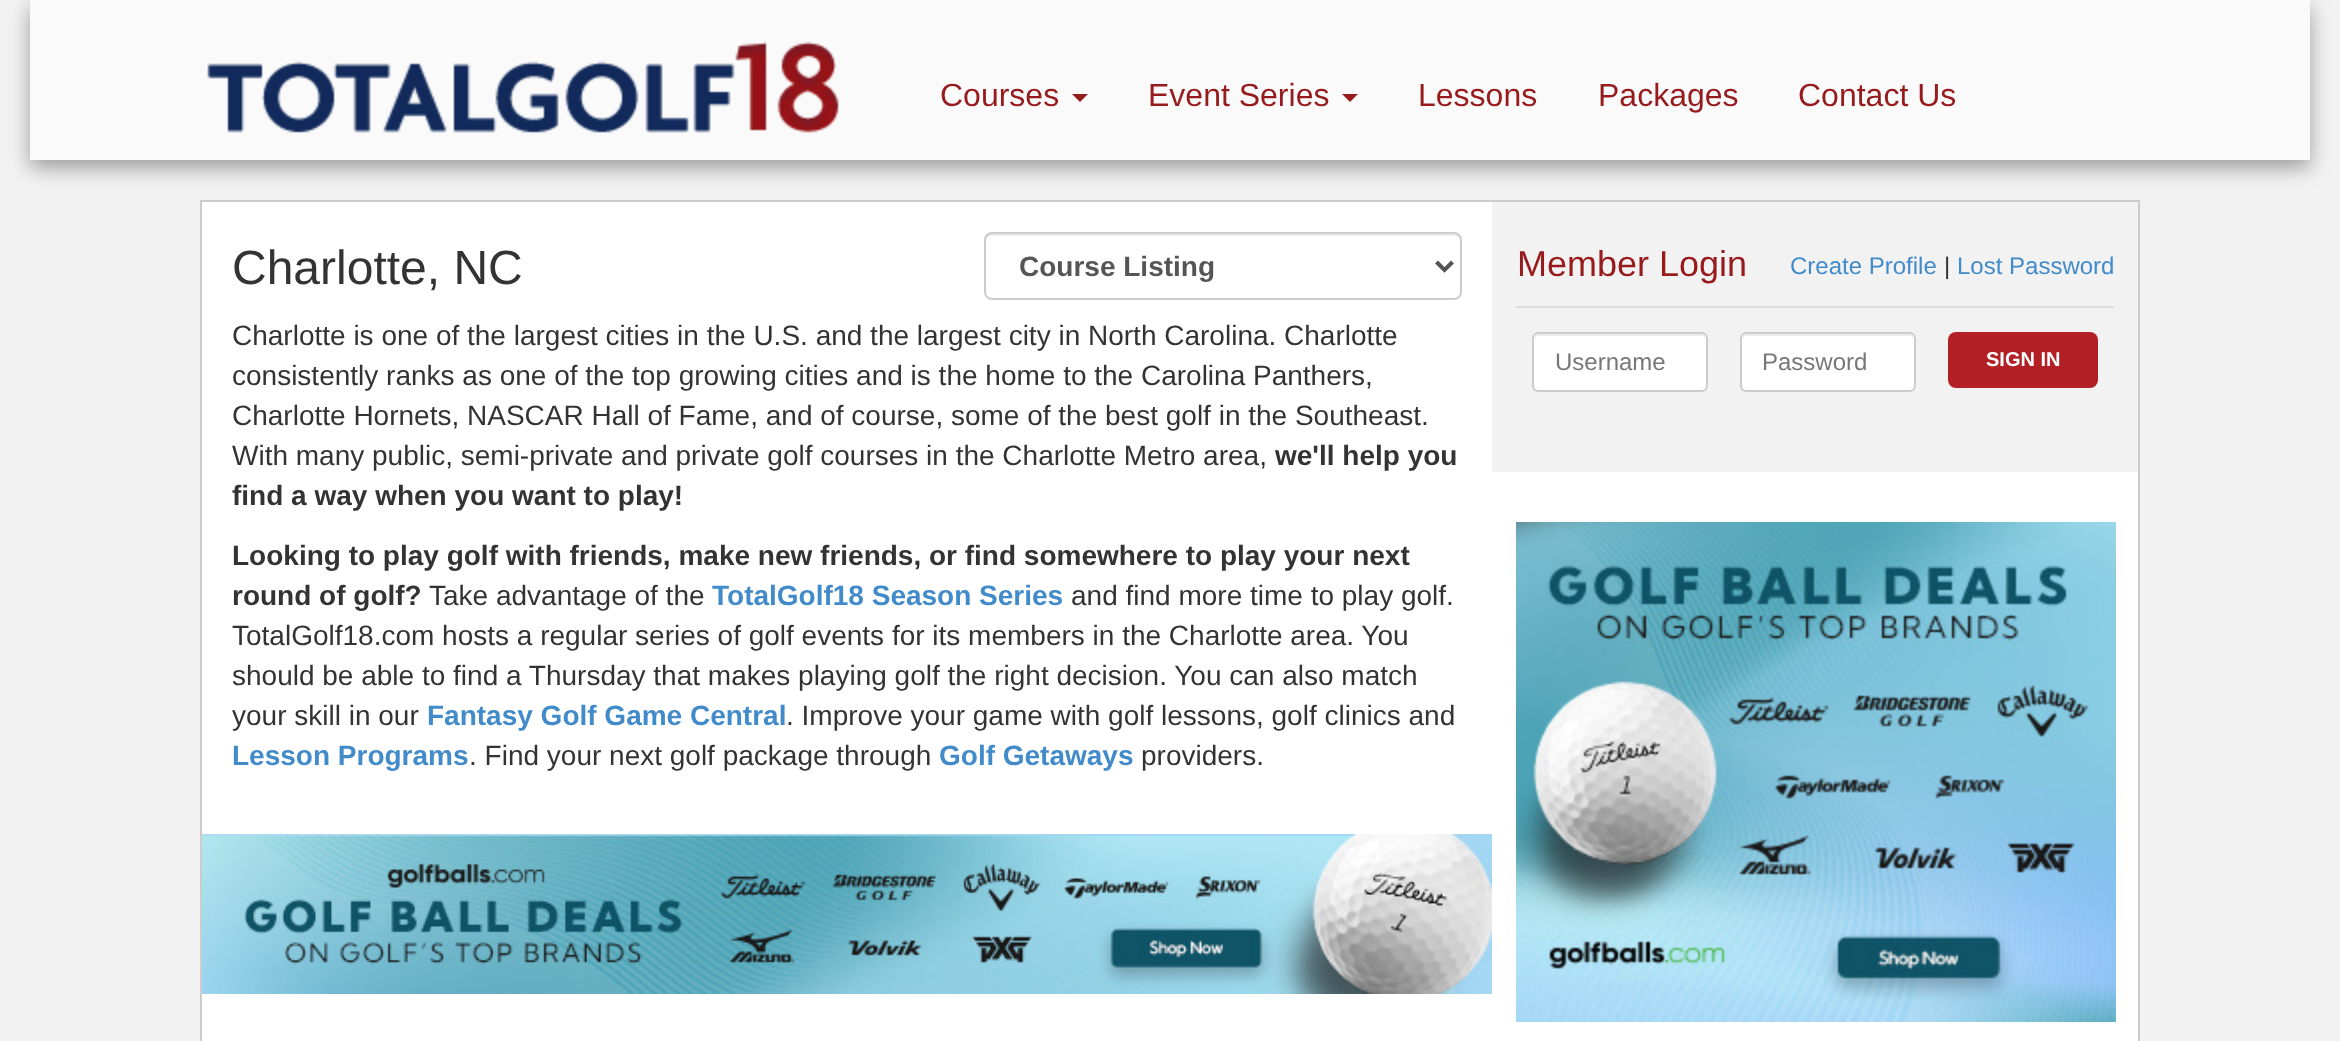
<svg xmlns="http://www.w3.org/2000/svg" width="2340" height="1041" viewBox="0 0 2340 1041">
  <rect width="100%" height="100%" fill="rgb(242,242,242)"/>
  <rect x="30" y="8" width="2280" height="160" fill="rgba(0,0,0,0.35)" filter="blur(10px)"/>
  <rect x="30" y="0" width="2280" height="160" fill="rgb(250,250,250)"/>
  <image x="207" y="41" width="632" height="92" href="pic1.png"/>
  <text x="940" y="106" font-family="Liberation Sans" font-size="32" fill="rgb(151,26,29)">Courses</text>
  <path d="M1072 94H1088L1080 102Z" fill="rgb(151,26,29)"/>
  <text x="1148" y="106" font-family="Liberation Sans" font-size="32" fill="rgb(151,26,29)">Event Series</text>
  <path d="M1342 94H1358L1350 102Z" fill="rgb(151,26,29)"/>
  <g font-family="Liberation Sans" font-size="32" fill="rgb(151,26,29)">
    <text x="1418" y="106">Lessons</text>
    <text x="1598" y="106">Packages</text>
    <text x="1798" y="106">Contact Us</text>
  </g>
  <rect x="201" y="201" width="1938" height="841" fill="rgb(255,255,255)" stroke="rgb(204,204,204)" stroke-width="2"/>
  <text x="232" y="284" font-family="Liberation Sans" font-size="48" fill="rgb(51,51,51)">Charlotte, NC</text>
  <path d="M992 236H1454C1457 236 1460 239 1460 242C1460 238 1459 234 1454 234H992C987 234 986 238 986 242C986 239 989 236 992 236Z" fill="rgb(236,236,236)"/>
  <rect x="985" y="233" width="476" height="66" rx="7" fill="none" stroke="rgb(204,204,204)" stroke-width="2"/>
  <path d="M1436.5 262L1444.5 270L1452.5 262" fill="none" stroke="rgb(85,85,85)" stroke-width="4"/>
  <text x="1019" y="276" font-family="Liberation Sans" font-size="28" font-weight="bold" fill="rgb(85,85,85)">Course Listing</text>
  <g font-family="Liberation Sans" font-size="28" fill="rgb(51,51,51)">
    <text>
      <tspan x="232" y="345">Charlotte is one of the largest cities in the U.S. and the largest city in North Carolina. Charlotte</tspan>
      <tspan x="232" y="385">consistently ranks as one of the top growing cities and is the home to the Carolina Panthers,</tspan>
      <tspan x="232" y="425">Charlotte Hornets, NASCAR Hall of Fame, and of course, some of the best golf in the Southeast.</tspan>
      <tspan x="232" y="465">With many public, semi-private and private golf courses in the Charlotte Metro area,</tspan>
    </text>
  </g>
  <g font-family="Liberation Sans" font-size="28" font-weight="bold" fill="rgb(51,51,51)">
    <text x="1275" y="465">we'll help you</text>
    <text x="232" y="505">find a way when you want to play!</text>
    <text>
      <tspan x="232" y="565">Looking to play golf with friends, make new friends, or find somewhere to play your next</tspan>
      <tspan x="232" y="605">round of golf?</tspan>
    </text>
  </g>
  <text x="429" y="605" font-family="Liberation Sans" font-size="28" fill="rgb(51,51,51)">Take advantage of the</text>
  <text x="712" y="605" font-family="Liberation Sans" font-size="28" font-weight="bold" fill="rgb(66,139,202)">TotalGolf18 Season Series</text>
  <g font-family="Liberation Sans" font-size="28" fill="rgb(51,51,51)">
    <text x="1071" y="605">and find more time to play golf.</text>
    <text>
      <tspan x="232" y="645">TotalGolf18.com hosts a regular series of golf events for its members in the Charlotte area. You</tspan>
      <tspan x="232" y="685">should be able to find a Thursday that makes playing golf the right decision. You can also match</tspan>
      <tspan x="232" y="725">your skill in our</tspan>
    </text>
  </g>
  <text x="427" y="725" font-family="Liberation Sans" font-size="28" font-weight="bold" fill="rgb(66,139,202)">Fantasy Golf Game Central</text>
  <text x="786" y="725" font-family="Liberation Sans" font-size="28" fill="rgb(51,51,51)">. Improve your game with golf lessons, golf clinics and</text>
  <text x="232" y="765" font-family="Liberation Sans" font-size="28" font-weight="bold" fill="rgb(66,139,202)">Lesson Programs</text>
  <text x="469" y="765" font-family="Liberation Sans" font-size="28" fill="rgb(51,51,51)">. Find your next golf package through</text>
  <text x="939" y="765" font-family="Liberation Sans" font-size="28" font-weight="bold" fill="rgb(66,139,202)">Golf Getaways</text>
  <text x="1141" y="765" font-family="Liberation Sans" font-size="28" fill="rgb(51,51,51)">providers.</text>
  <image x="202" y="834" width="1290" height="160" href="pic2.png"/>
  <rect x="1492" y="202" width="646" height="270" fill="rgb(242,242,242)"/>
  <text x="1517" y="276" font-family="Liberation Sans" font-size="36" fill="rgb(151,26,29)">Member Login</text>
  <text x="1790" y="274" font-family="Liberation Sans" font-size="24" fill="rgb(66,139,202)">Create Profile</text>
  <text x="1944" y="274" font-family="Liberation Sans" font-size="24" fill="rgb(51,51,51)">|</text>
  <text x="1957" y="274" font-family="Liberation Sans" font-size="24" fill="rgb(66,139,202)">Lost Password</text>
  <rect x="1532" y="332" width="176" height="60" rx="6" fill="rgb(255,255,255)"/>
  <path d="M1538 336H1702C1704 336 1706 338 1706 340V338C1706 336 1704 334 1702 334H1538C1536 334 1534 336 1534 338V340C1534 338 1536 336 1538 336Z" fill="rgb(236,236,236)"/>
  <rect x="1533" y="333" width="174" height="58" rx="5" fill="none" stroke="rgb(204,204,204)" stroke-width="2"/>
  <text x="1555" y="370" font-family="Liberation Sans" font-size="24" fill="rgb(119,119,119)">Username</text>
  <rect x="1740" y="332" width="176" height="60" rx="6" fill="rgb(255,255,255)"/>
  <path d="M1746 336H1910C1912 336 1914 338 1914 340V338C1914 336 1912 334 1910 334H1746C1744 334 1742 336 1742 338V340C1742 338 1744 336 1746 336Z" fill="rgb(236,236,236)"/>
  <rect x="1741" y="333" width="174" height="58" rx="5" fill="none" stroke="rgb(204,204,204)" stroke-width="2"/>
  <text x="1762" y="370" font-family="Liberation Sans" font-size="24" fill="rgb(119,119,119)">Password</text>
  <rect x="1516" y="306" width="598" height="2" fill="rgb(221,221,221)"/>
  <rect x="1948" y="332" width="150" height="56" rx="8" fill="rgb(178,31,37)"/>
  <text x="1986" y="366" font-family="Liberation Sans" font-size="20" font-weight="bold" fill="rgb(255,255,255)">SIGN IN</text>
  <image x="1516" y="522" width="600" height="500" href="pic3.png"/>
</svg>
